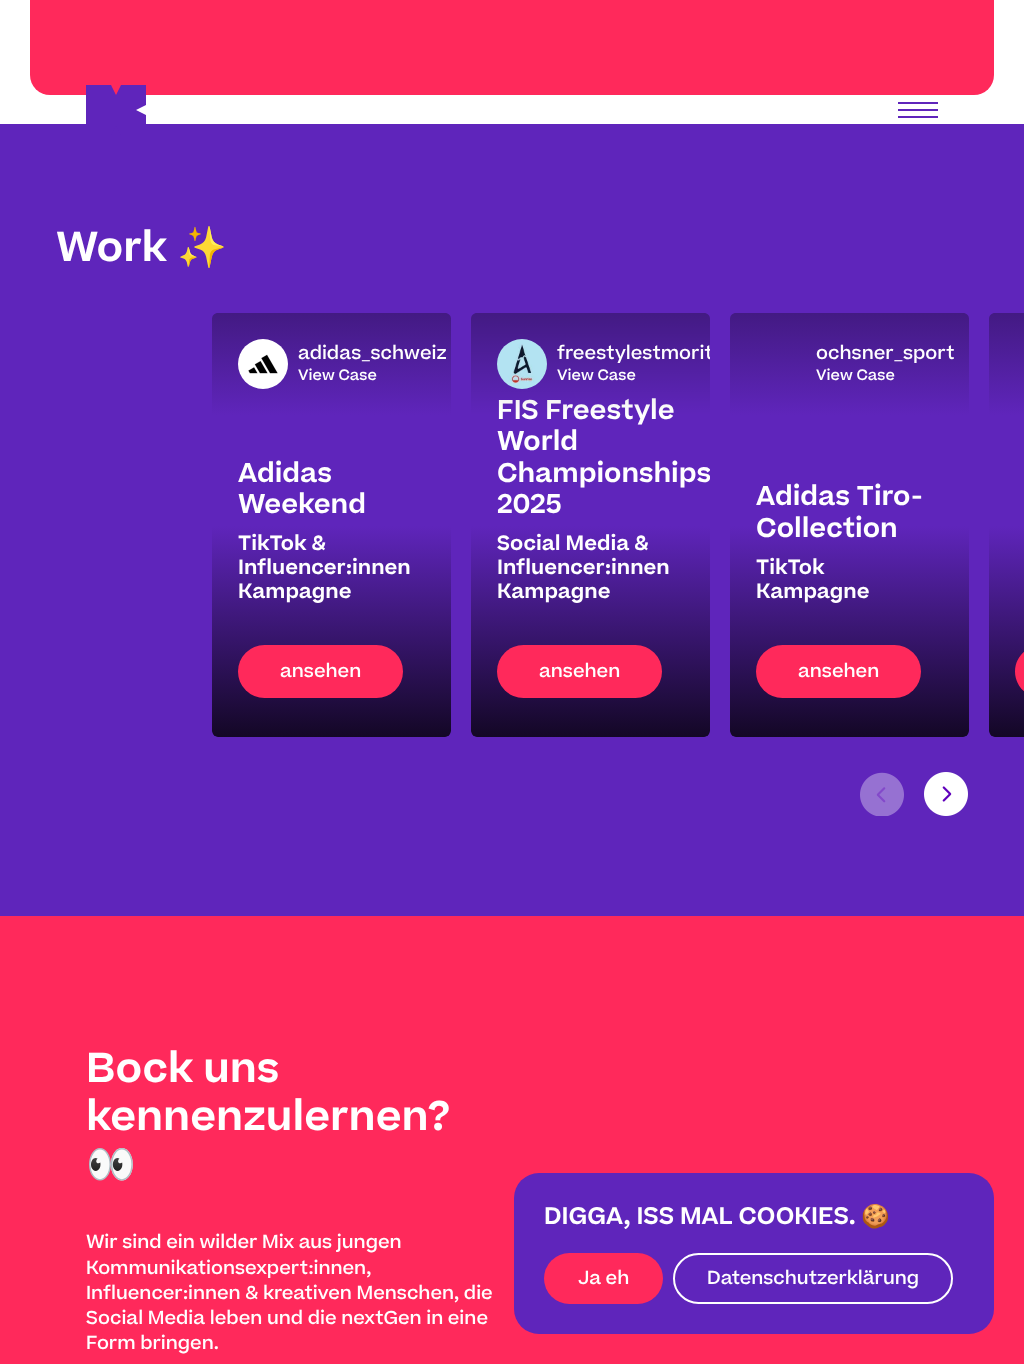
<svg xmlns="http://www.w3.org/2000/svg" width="1024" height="1364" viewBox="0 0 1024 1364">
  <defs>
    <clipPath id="clip1"><rect x="212" y="313" width="239" height="424" rx="6"/></clipPath>
    <linearGradient id="g1" gradientUnits="userSpaceOnUse" x1="332" y1="738" x2="332" y2="314"><stop offset="0" stop-color="rgb(19,7,37)"/><stop offset="0.5" stop-color="rgb(95,37,187)"/></linearGradient>
    <linearGradient id="g2" gradientUnits="userSpaceOnUse" x1="332" y1="313" x2="332" y2="415"><stop offset="0" stop-color="rgb(67,26,131)"/><stop offset="1" stop-color="rgb(95,37,187)"/></linearGradient>
    <clipPath id="clip2"><rect x="471" y="313" width="239" height="424" rx="6"/></clipPath>
    <linearGradient id="g3" gradientUnits="userSpaceOnUse" x1="591" y1="738" x2="591" y2="314"><stop offset="0" stop-color="rgb(19,7,37)"/><stop offset="0.5" stop-color="rgb(95,37,187)"/></linearGradient>
    <linearGradient id="g4" gradientUnits="userSpaceOnUse" x1="591" y1="313" x2="591" y2="415"><stop offset="0" stop-color="rgb(0,0,0)" stop-opacity="0.3"/><stop offset="1" stop-color="rgb(0,0,0)" stop-opacity="0"/></linearGradient>
    <clipPath id="clip3"><rect x="730" y="313" width="239" height="424" rx="6"/></clipPath>
    <linearGradient id="g5" gradientUnits="userSpaceOnUse" x1="850" y1="738" x2="850" y2="314"><stop offset="0" stop-color="rgb(19,7,37)"/><stop offset="0.5" stop-color="rgb(95,37,187)"/></linearGradient>
    <linearGradient id="g6" gradientUnits="userSpaceOnUse" x1="850" y1="313" x2="850" y2="415"><stop offset="0" stop-color="rgb(67,26,131)"/><stop offset="1" stop-color="rgb(95,37,187)"/></linearGradient>
    <clipPath id="clip4"><rect x="989" y="313" width="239" height="424" rx="6"/></clipPath>
    <linearGradient id="g7" gradientUnits="userSpaceOnUse" x1="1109" y1="738" x2="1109" y2="314"><stop offset="0" stop-color="rgb(19,7,37)"/><stop offset="0.5" stop-color="rgb(95,37,187)"/></linearGradient>
    <linearGradient id="g8" gradientUnits="userSpaceOnUse" x1="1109" y1="313" x2="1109" y2="415"><stop offset="0" stop-color="rgb(67,26,131)"/><stop offset="1" stop-color="rgb(95,37,187)"/></linearGradient>
  </defs>
  <rect width="100%" height="100%" fill="rgb(255,255,255)"/>
  <rect x="30" y="-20" width="964" height="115" rx="20" fill="rgb(255,41,91)"/>
  <rect x="0" y="124" width="1024" height="792" fill="rgb(95,37,187)"/>
  <path d="M146 105V85H121L116 95L111 85H86V135H111L116 126L121 135H146V115L136 110Z" fill="rgb(95,37,187)"/>
  <rect x="898" y="102" width="40" height="2" fill="rgb(95,37,187)"/>
  <rect x="898" y="109" width="40" height="2" fill="rgb(95,37,187)"/>
  <rect x="898" y="116" width="40" height="2" fill="rgb(95,37,187)"/>
  <text x="56" y="261" font-family="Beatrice" font-size="40" font-weight="600" fill="rgb(255,255,255)">Work</text>
  <text x="177" y="261" font-family="Noto Color Emoji" font-size="40" fill="rgb(255,255,255)">✨</text>
  <g clip-path="url(#clip1)">
    <path d="M212 314H451V731C451 734.5 448.5 737 445 737H218C214.5 737 212 734.5 212 731Z" fill="url(#g1)"/>
  </g>
  <path d="M218 313H445C448.5 313 451 315.5 451 319V415H212V319C212 315.5 214.5 313 218 313Z" fill="url(#g2)"/>
  <image x="238" y="339" width="50" height="50" href="pic1.png"/>
  <text x="298" y="359" font-family="Beatrice" font-size="18" font-weight="500" fill="rgb(255,255,255)">adidas_schweiz</text>
  <text x="298" y="380" font-family="Beatrice" font-size="14.5" font-weight="500" fill="rgb(255,255,255)">View Case</text>
  <g font-family="Beatrice" font-size="26" font-weight="600" fill="rgb(255,255,255)">
    <text>
      <tspan x="238" y="482">Adidas</tspan>
      <tspan x="238" y="513">Weekend</tspan>
    </text>
  </g>
  <g font-family="Beatrice" font-size="19.75" font-weight="600" fill="rgb(255,255,255)">
    <text>
      <tspan x="238" y="550">TikTok &amp;</tspan>
      <tspan x="238" y="574">Influencer:innen</tspan>
      <tspan x="238" y="598">Kampagne</tspan>
    </text>
  </g>
  <rect x="238" y="645" width="165" height="53" rx="26.5" fill="rgb(255,41,91)"/>
  <text x="280" y="677" font-family="Beatrice" font-size="18" font-weight="500" fill="rgb(255,255,255)">ansehen</text>
  <g clip-path="url(#clip2)">
    <path d="M471 314H710V731C710 734.5 707.5 737 704 737H477C473.5 737 471 734.5 471 731Z" fill="url(#g3)"/>
  </g>
  <text x="497" y="419" font-family="Beatrice" font-size="26" font-weight="600" fill="rgb(255,255,255)">FIS Freestyle</text>
  <path d="M477 313H704C707.5 313 710 315.5 710 319V415H471V319C471 315.5 473.5 313 477 313Z" fill="url(#g4)"/>
  <image x="497" y="339" width="50" height="50" href="pic2.png"/>
  <g clip-path="url(#clip2)">
    <text x="557" y="359" font-family="Beatrice" font-size="18" font-weight="500" fill="rgb(255,255,255)">freestylestmorit</text>
  </g>
  <text x="557" y="380" font-family="Beatrice" font-size="14.5" font-weight="500" fill="rgb(255,255,255)">View Case</text>
  <text x="497" y="450" font-family="Beatrice" font-size="26" font-weight="600" fill="rgb(255,255,255)">World</text>
  <g clip-path="url(#clip2)">
    <text x="497" y="482" font-family="Beatrice" font-size="26" font-weight="600" fill="rgb(255,255,255)">Championships</text>
  </g>
  <text x="497" y="513" font-family="Beatrice" font-size="26" font-weight="600" fill="rgb(255,255,255)">2025</text>
  <g font-family="Beatrice" font-size="19.75" font-weight="600" fill="rgb(255,255,255)">
    <text>
      <tspan x="497" y="550">Social Media &amp;</tspan>
      <tspan x="497" y="574">Influencer:innen</tspan>
      <tspan x="497" y="598">Kampagne</tspan>
    </text>
  </g>
  <rect x="497" y="645" width="165" height="53" rx="26.5" fill="rgb(255,41,91)"/>
  <text x="539" y="677" font-family="Beatrice" font-size="18" font-weight="500" fill="rgb(255,255,255)">ansehen</text>
  <g clip-path="url(#clip3)">
    <path d="M730 314H969V731C969 734.5 966.5 737 963 737H736C732.5 737 730 734.5 730 731Z" fill="url(#g5)"/>
  </g>
  <path d="M736 313H963C966.5 313 969 315.5 969 319V415H730V319C730 315.5 732.5 313 736 313Z" fill="url(#g6)"/>
  <text x="816" y="359" font-family="Beatrice" font-size="18" font-weight="500" fill="rgb(255,255,255)">ochsner_sport</text>
  <text x="816" y="380" font-family="Beatrice" font-size="14.5" font-weight="500" fill="rgb(255,255,255)">View Case</text>
  <g font-family="Beatrice" font-size="26" font-weight="600" fill="rgb(255,255,255)">
    <text>
      <tspan x="756" y="505">Adidas Tiro-</tspan>
      <tspan x="756" y="537">Collection</tspan>
    </text>
  </g>
  <g font-family="Beatrice" font-size="19.75" font-weight="600" fill="rgb(255,255,255)">
    <text>
      <tspan x="756" y="574">TikTok</tspan>
      <tspan x="756" y="598">Kampagne</tspan>
    </text>
  </g>
  <rect x="756" y="645" width="165" height="53" rx="26.5" fill="rgb(255,41,91)"/>
  <text x="798" y="677" font-family="Beatrice" font-size="18" font-weight="500" fill="rgb(255,255,255)">ansehen</text>
  <g clip-path="url(#clip4)">
    <path d="M989 314H1024V737H995C991.5 737 989 734.5 989 731Z" fill="url(#g7)"/>
  </g>
  <path d="M995 313H1024V415H989V319C989 315.5 991.5 313 995 313Z" fill="url(#g8)"/>
  <path d="M1041.5 645H1024V698H1041.5C1027 698 1015 686 1015 671.5C1015 657 1027 645 1041.5 645Z" fill="rgb(255,41,91)"/>
  <image x="860" y="772" width="44" height="44" href="pic3.png"/>
  <image x="924" y="772" width="44" height="44" href="pic4.png"/>
  <rect x="0" y="916" width="1024" height="448" fill="rgb(255,41,91)"/>
  <g font-family="Beatrice" font-size="40" font-weight="600" fill="rgb(255,255,255)">
    <text>
      <tspan x="86" y="1082">Bock uns</tspan>
      <tspan x="86" y="1130">kennenzulernen?</tspan>
    </text>
  </g>
  <text x="86" y="1178" font-family="Noto Color Emoji" font-size="40" fill="rgb(255,255,255)">👀</text>
  <g font-family="Beatrice" font-size="18" font-weight="500" fill="rgb(255,255,255)">
    <text>
      <tspan x="86" y="1248">Wir sind ein wilder Mix aus jungen</tspan>
      <tspan x="86" y="1274">Kommunikationsexpert:innen,</tspan>
      <tspan x="86" y="1299">Influencer:innen &amp; kreativen Menschen, die</tspan>
      <tspan x="86" y="1324">Social Media leben und die nextGen in eine</tspan>
      <tspan x="86" y="1349">Form bringen.</tspan>
    </text>
  </g>
  <rect x="514" y="1173" width="480" height="161" rx="25" fill="rgb(95,37,187)"/>
  <text x="544" y="1224" font-family="Beatrice" font-size="23" font-weight="600" fill="rgb(255,255,255)">DIGGA, ISS MAL COOKIES.</text>
  <text x="861" y="1224" font-family="Noto Color Emoji" font-size="23" fill="rgb(255,255,255)">🍪</text>
  <rect x="544" y="1253" width="119" height="51" rx="25.5" fill="rgb(255,41,91)"/>
  <text x="578" y="1284" font-family="Beatrice" font-size="18" font-weight="500" fill="rgb(255,255,255)">Ja eh</text>
  <rect x="674" y="1254" width="278" height="49" rx="24.5" fill="none" stroke="rgb(255,255,255)" stroke-width="2"/>
  <text x="707" y="1284" font-family="Beatrice" font-size="18" font-weight="500" fill="rgb(255,255,255)">Datenschutzerklärung</text>
</svg>
